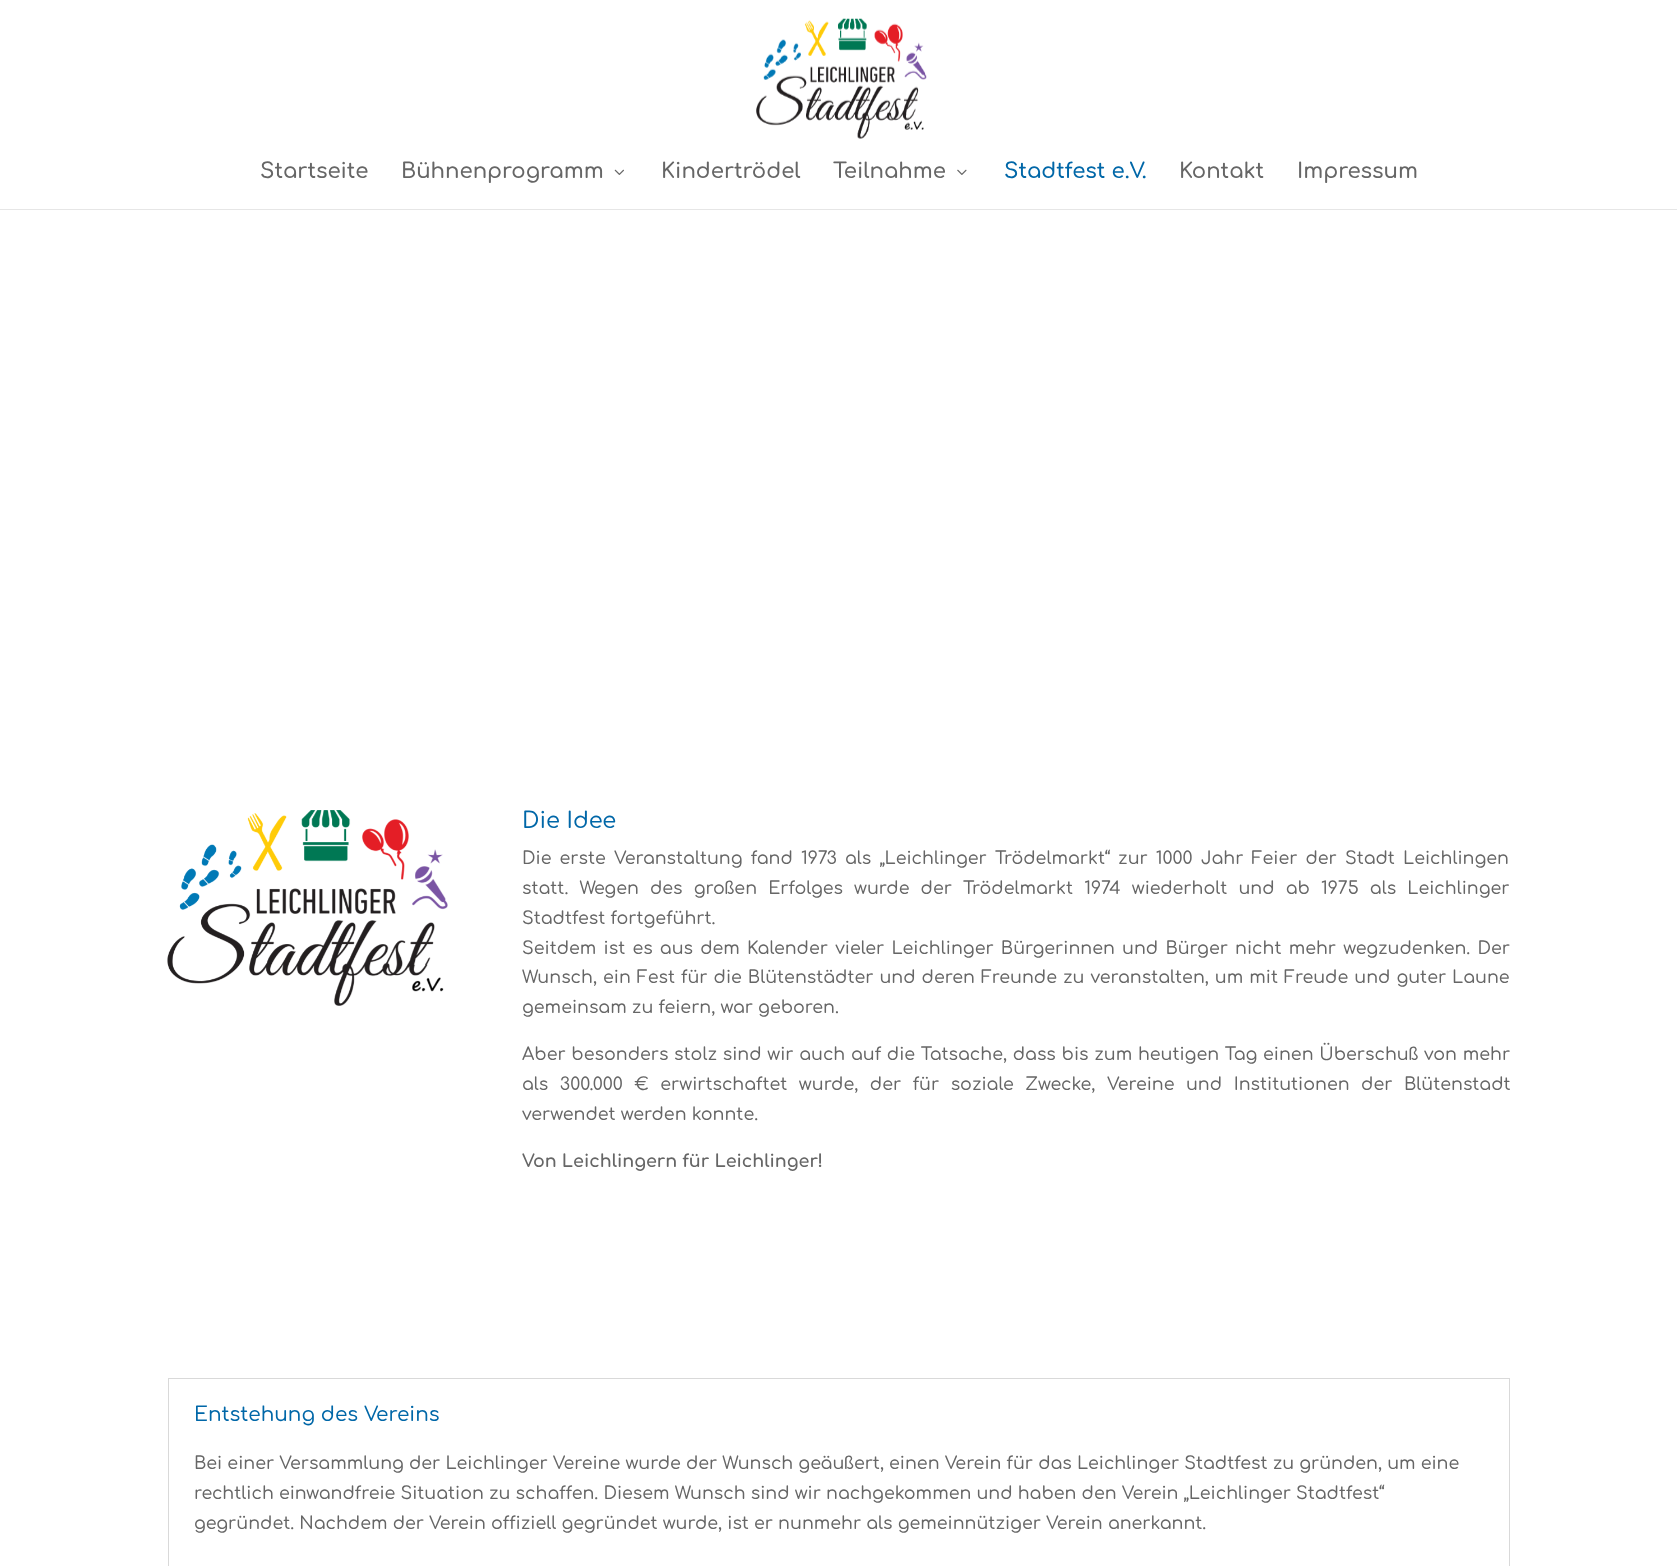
<svg xmlns="http://www.w3.org/2000/svg" width="1677" height="1566" viewBox="0 0 1677 1566">
  <rect width="100%" height="100%" fill="rgb(255,255,255)"/>
  <path d="M0 209V210H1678V1V209Z" fill="rgb(230,230,230)"/>
  <image x="756" y="18" width="171" height="121" href="pic1.png"/>
  <g font-family="Comfortaa" font-size="21.25" font-weight="600" fill="rgb(102,102,102)">
    <text x="260" y="178">Startseite</text>
    <text x="401" y="178">Bühnenprogramm</text>
  </g>
  <image x="614" y="169" width="10" height="6" href="pic2.png"/>
  <g font-family="Comfortaa" font-size="21.25" font-weight="600" fill="rgb(102,102,102)">
    <text x="661" y="178">Kindertrödel</text>
    <text x="833" y="178">Teilnahme</text>
  </g>
  <image x="957" y="169" width="10" height="6" href="pic3.png"/>
  <text x="1004" y="178" font-family="Comfortaa" font-size="21.25" font-weight="600" fill="rgb(0,103,168)">Stadtfest e.V.</text>
  <g font-family="Comfortaa" font-size="21.25" font-weight="600" fill="rgb(102,102,102)">
    <text x="1179" y="178">Kontakt</text>
    <text x="1297" y="178">Impressum</text>
  </g>
  <image x="167" y="810" width="281" height="196" href="pic4.png"/>
  <text x="522" y="828" font-family="Comfortaa" font-size="22.5" font-weight="500" fill="rgb(0,103,168)">Die Idee</text>
  <g font-family="Comfortaa" font-size="17.5" font-weight="500" fill="rgb(102,102,102)">
    <text x="522" y="864" word-spacing="3">Die erste Veranstaltung fand 1973</text>
    <text x="845" y="864" word-spacing="3">als „Leichlinger Trödelmarkt“ zur 1000 Jahr Feier der Stadt Leichlingen</text>
    <text>
      <tspan x="522" y="894" word-spacing="6">statt. Wegen des großen Erfolges wurde der Trödelmarkt 1974 wiederholt und ab 1975 als Leichlinger</tspan>
      <tspan x="522" y="924">Stadtfest fortgeführt.</tspan>
      <tspan x="522" y="954" word-spacing="2.1">Seitdem ist es aus dem Kalender vieler Leichlinger Bürgerinnen und Bürger nicht mehr wegzudenken. Der</tspan>
      <tspan x="522" y="983" word-spacing="0.9">Wunsch, ein Fest für die Blütenstädter und deren Freunde zu veranstalten, um mit Freude und guter Laune</tspan>
      <tspan x="522" y="1013">gemeinsam zu feiern, war geboren.</tspan>
    </text>
    <text>
      <tspan x="522" y="1060" word-spacing="0.6">Aber besonders stolz sind wir auch auf die Tatsache, dass bis zum heutigen Tag einen Überschuß von mehr</tspan>
      <tspan x="522" y="1090" word-spacing="6.4">als 300.000 € erwirtschaftet wurde, der für soziale Zwecke, Vereine und Institutionen der Blütenstadt</tspan>
      <tspan x="522" y="1120">verwendet werden konnte.</tspan>
    </text>
  </g>
  <text x="522" y="1167" font-family="Comfortaa" font-size="17.5" font-weight="bold" fill="rgb(102,102,102)">Von Leichlingern für Leichlinger!</text>
  <rect x="168.5" y="1378.5" width="1341" height="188" fill="none" stroke="rgb(217,217,217)"/>
  <text x="194" y="1421" font-family="Comfortaa" font-size="20" font-weight="500" fill="rgb(0,103,168)">Entstehung des Vereins</text>
  <g font-family="Comfortaa" font-size="17.5" font-weight="500" fill="rgb(102,102,102)">
    <text>
      <tspan x="194" y="1469">Bei einer Versammlung der Leichlinger Vereine wurde der Wunsch geäußert, einen Verein für das Leichlinger Stadtfest zu gründen, um eine</tspan>
      <tspan x="194" y="1499">rechtlich einwandfreie Situation zu schaffen. Diesem Wunsch sind wir nachgekommen und haben den Verein „Leichlinger Stadtfest“</tspan>
      <tspan x="194" y="1529">gegründet. Nachdem der Verein offiziell gegründet wurde, ist er nunmehr als gemeinnütziger Verein anerkannt.</tspan>
    </text>
  </g>
</svg>
